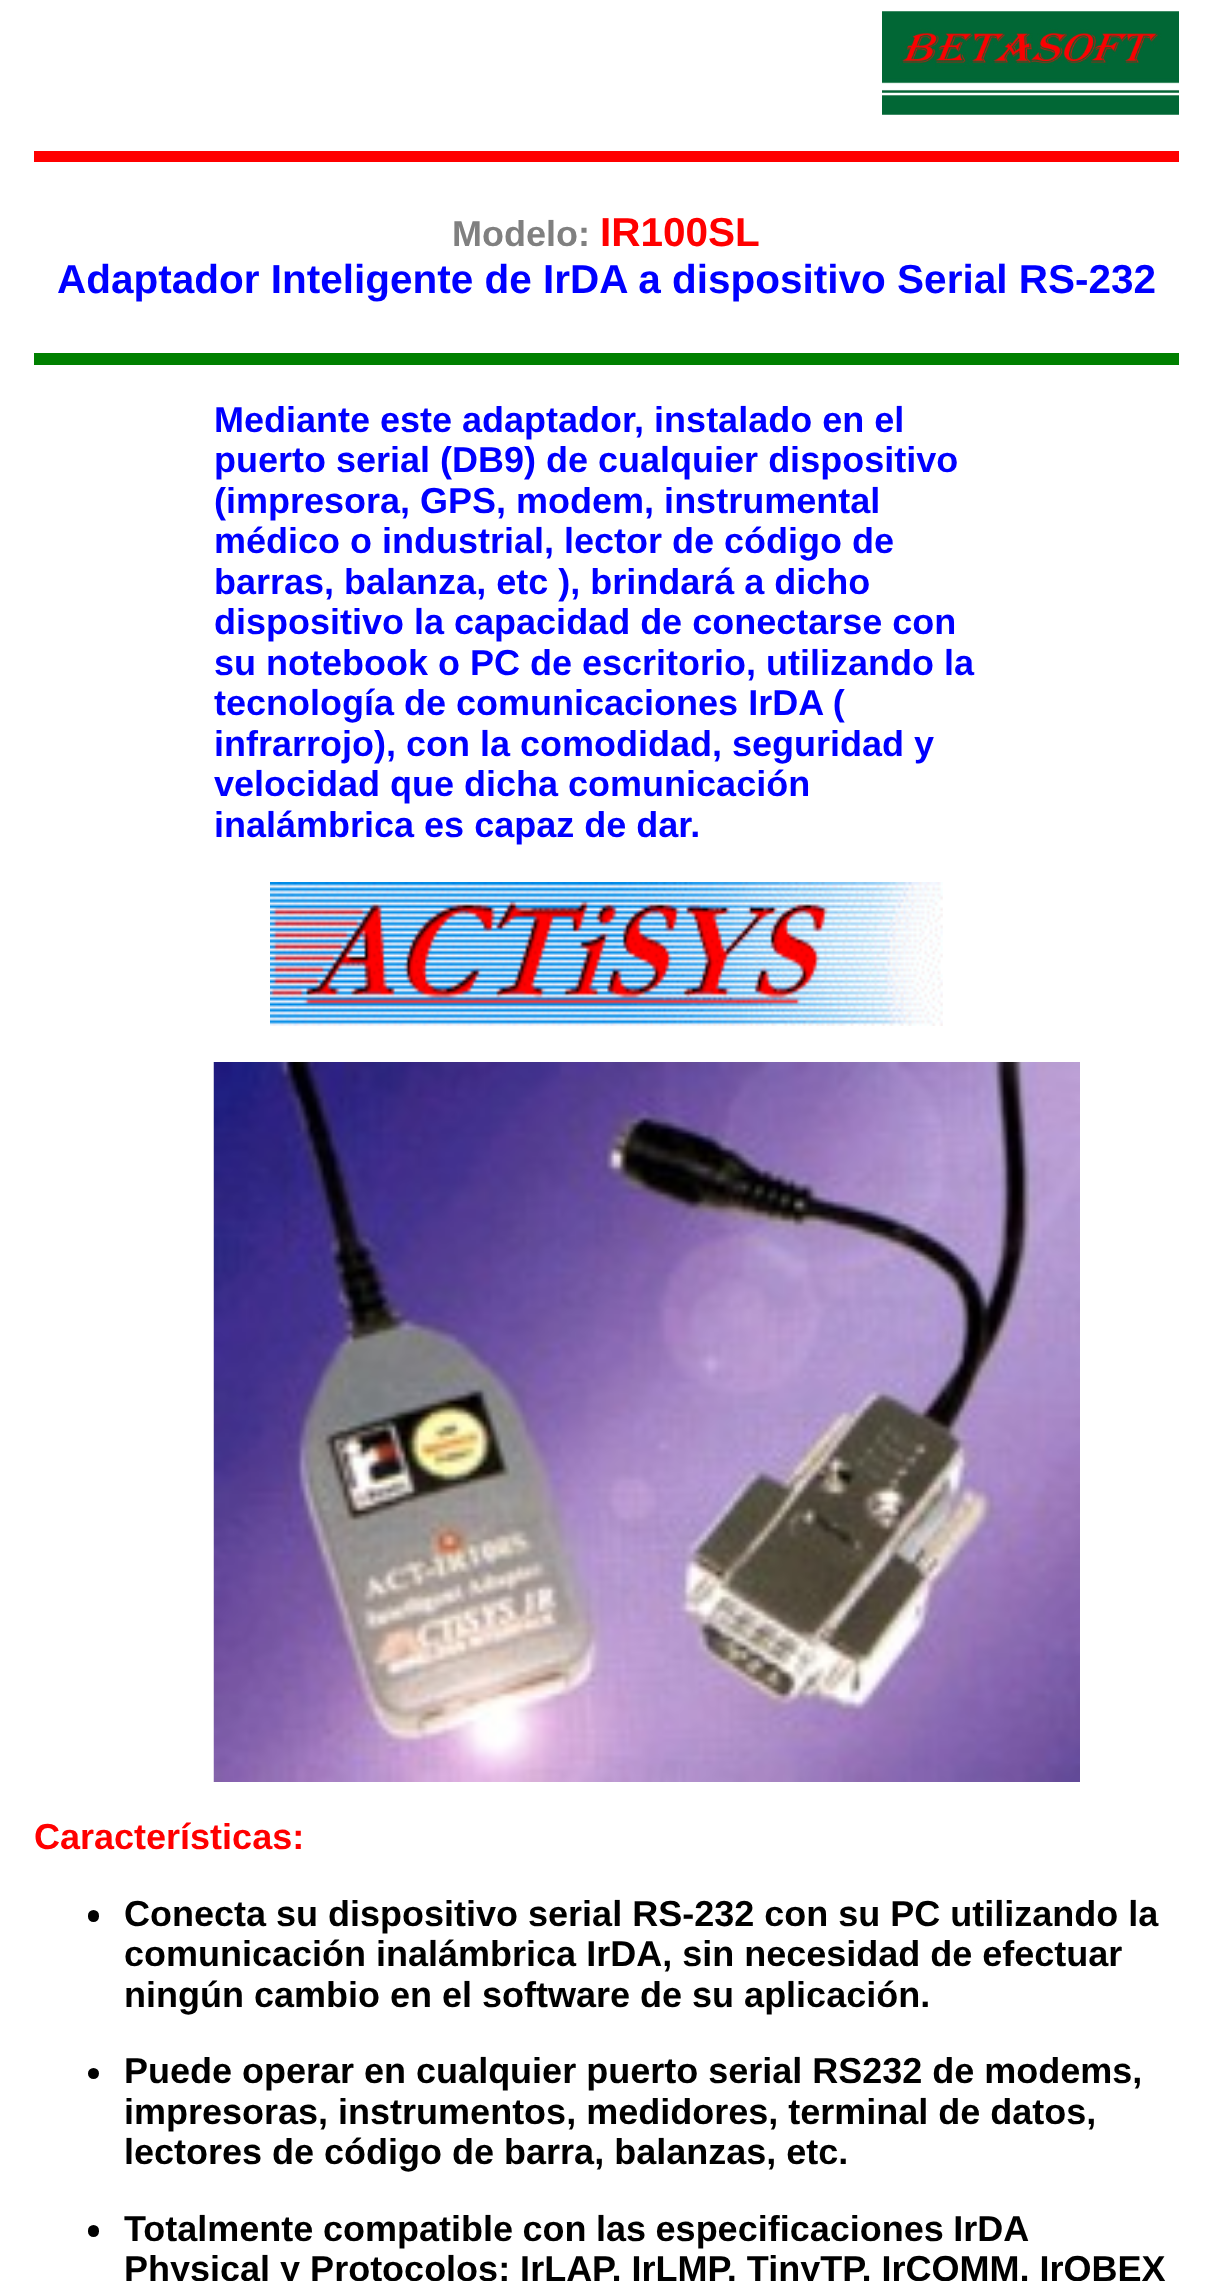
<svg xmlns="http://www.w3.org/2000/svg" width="1211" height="2281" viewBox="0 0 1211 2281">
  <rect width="100%" height="100%" fill="rgb(255,255,255)"/>
  <image x="882" y="11" width="297" height="104" href="pic1.png"/>
  <rect x="34" y="151" width="1145" height="11" fill="rgb(255,0,0)"/>
  <text x="452" y="246" font-family="Liberation Sans" font-size="36" font-weight="bold" fill="rgb(128,128,128)">Modelo:</text>
  <text x="600" y="246" font-family="Liberation Sans" font-size="40.5" font-weight="bold" fill="rgb(255,0,0)">IR100SL</text>
  <text x="57" y="293" font-family="Liberation Sans" font-size="40.5" font-weight="bold" fill="rgb(0,0,255)">Adaptador Inteligente de IrDA a dispositivo Serial RS-232</text>
  <rect x="34" y="353" width="1145" height="12" fill="rgb(0,128,0)"/>
  <g font-family="Liberation Sans" font-size="36" font-weight="bold" fill="rgb(0,0,255)">
    <text>
      <tspan x="214" y="432">Mediante este adaptador, instalado en el</tspan>
      <tspan x="214" y="472">puerto serial (DB9) de cualquier dispositivo</tspan>
      <tspan x="214" y="513">(impresora, GPS, modem, instrumental</tspan>
      <tspan x="214" y="553">médico o industrial, lector de código de</tspan>
      <tspan x="214" y="594">barras, balanza, etc ), brindará a dicho</tspan>
      <tspan x="214" y="634">dispositivo la capacidad de conectarse con</tspan>
      <tspan x="214" y="675">su notebook o PC de escritorio, utilizando la</tspan>
      <tspan x="214" y="715">tecnología de comunicaciones IrDA (</tspan>
      <tspan x="214" y="756">infrarrojo), con la comodidad, seguridad y</tspan>
      <tspan x="214" y="796">velocidad que dicha comunicación</tspan>
      <tspan x="214" y="837">inalámbrica es capaz de dar.</tspan>
    </text>
  </g>
  <image x="270" y="882" width="673" height="144" href="pic2.png"/>
  <image x="213" y="1062" width="867" height="720" href="pic3.png"/>
  <text x="34" y="1849" font-family="Liberation Sans" font-size="36" font-weight="bold" fill="rgb(255,0,0)">Características:</text>
  <rect x="88" y="1910" width="11" height="12" rx="5.5" fill="rgb(0,0,0)"/>
  <g font-family="Liberation Sans" font-size="36" font-weight="bold" fill="rgb(0,0,0)">
    <text>
      <tspan x="124" y="1926">Conecta su dispositivo serial RS-232 con su PC utilizando la</tspan>
      <tspan x="124" y="1966">comunicación inalámbrica IrDA, sin necesidad de efectuar</tspan>
      <tspan x="124" y="2007">ningún cambio en el software de su aplicación.</tspan>
    </text>
  </g>
  <circle cx="93.5" cy="2073.5" r="5.5" fill="rgb(0,0,0)"/>
  <g font-family="Liberation Sans" font-size="36" font-weight="bold" fill="rgb(0,0,0)">
    <text>
      <tspan x="124" y="2083">Puede operar en cualquier puerto serial RS232 de modems,</tspan>
      <tspan x="124" y="2124">impresoras, instrumentos, medidores, terminal de datos,</tspan>
      <tspan x="124" y="2164">lectores de código de barra, balanzas, etc.</tspan>
    </text>
  </g>
  <rect x="88" y="2225" width="11" height="12" rx="5.5" fill="rgb(0,0,0)"/>
  <g font-family="Liberation Sans" font-size="36" font-weight="bold" fill="rgb(0,0,0)">
    <text x="124" y="2241">Totalmente</text>
    <text x="323" y="2241" word-spacing="-0.5">compatible con las especificaciones IrDA</text>
    <text x="124" y="2281">Physical y Protocolos: IrLAP, IrLMP, TinyTP, IrCOMM, IrOBEX</text>
  </g>
</svg>
